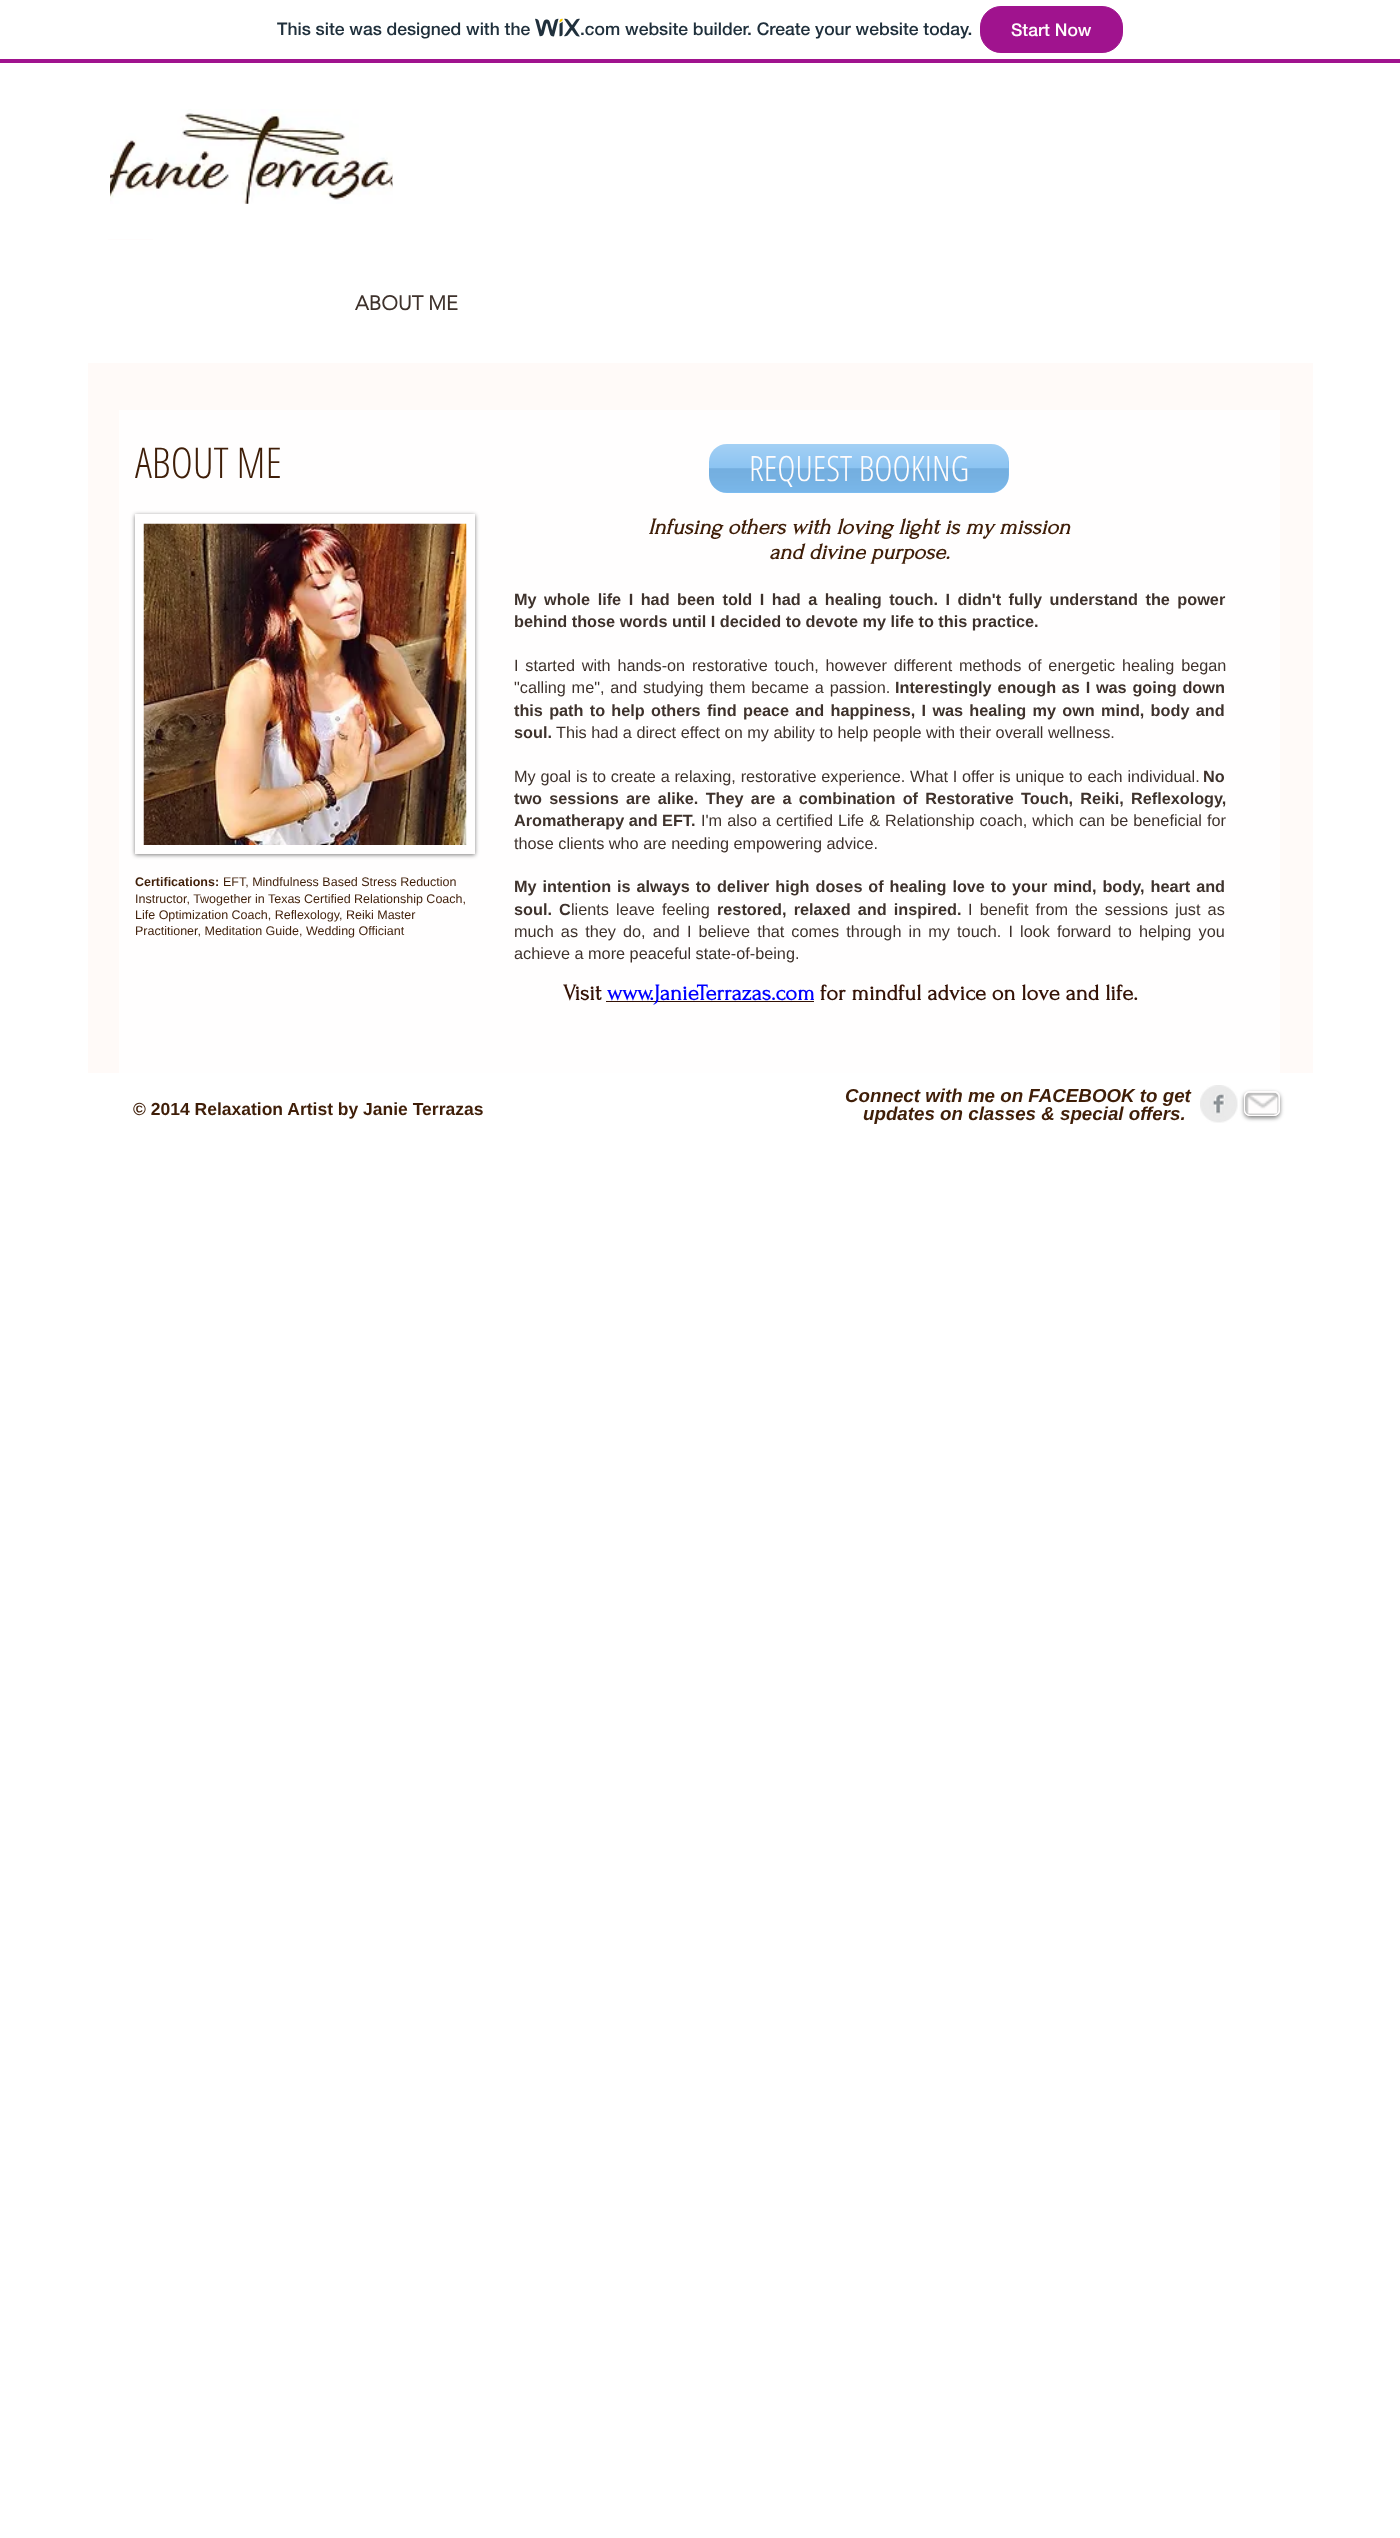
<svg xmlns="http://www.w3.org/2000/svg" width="1400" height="2538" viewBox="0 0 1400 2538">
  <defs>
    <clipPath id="clip1"><path d="M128 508H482V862H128ZM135 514H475V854H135Z" clip-rule="evenodd"/></clipPath>
    <clipPath id="clip2"><path d="M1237 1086H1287V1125H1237ZM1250 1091H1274C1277.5 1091 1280 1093.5 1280 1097V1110C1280 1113.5 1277.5 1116 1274 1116H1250C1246.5 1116 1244 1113.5 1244 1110V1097C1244 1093.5 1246.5 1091 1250 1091Z" clip-rule="evenodd"/></clipPath>
  </defs>
  <rect width="100%" height="100%" fill="rgb(255,255,255)"/>
  <rect x="0" y="59" width="1400" height="4" fill="rgb(160,19,142)"/>
  <text x="277" y="35" font-family="'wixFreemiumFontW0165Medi'" font-size="17.5" font-weight="500" fill="rgb(32,48,60)">This site was designed with the</text>
  <image x="535" y="18" width="45" height="19" href="pic1.png"/>
  <text x="580" y="35" font-family="'wixFreemiumFontW0165Medi'" font-size="17.5" font-weight="500" fill="rgb(32,48,60)">.com website builder. Create your website today.</text>
  <rect x="980.5" y="6.5" width="142" height="46" rx="20.5" fill="rgb(160,19,142)" stroke="rgb(160,19,142)"/>
  <text x="1011" y="36" font-family="'wixFreemiumFontW0165Medi'" font-size="17.5" font-weight="500" fill="rgb(255,252,252)">Start Now</text>
  <image x="110" y="109" width="283" height="95" href="pic2.png"/>
  <rect x="108" y="239" width="45" height="1" fill="rgb(255,252,252)"/>
  <text x="355" y="310" font-family="'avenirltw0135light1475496'" font-size="20" font-weight="bold" fill="rgb(62,50,44)">ABOUT ME</text>
  <rect x="88" y="363" width="1225" height="710" fill="rgb(255,250,248)"/>
  <rect x="119" y="410" width="1161" height="663" fill="rgb(255,254,254)"/>
  <text x="135" y="478" font-family="Open Sans Condensed" font-size="42.5" font-weight="300" fill="rgb(63,30,8)">ABOUT ME</text>
  <rect x="709" y="444" width="300" height="49" rx="18" fill="rgb(125,188,240)"/>
  <image x="709" y="444" width="300" height="48" href="pic3.png"/>
  <text x="749" y="481" font-family="Open Sans Condensed" font-size="35" font-weight="300" fill="rgb(255,252,252)">REQUEST BOOKING</text>
  <g clip-path="url(#clip1)">
    <rect x="135" y="515" width="340" height="340" fill="rgba(0,0,0,0.5)" filter="blur(2px)"/>
  </g>
  <rect x="135" y="853" width="340" height="1" fill="rgba(255,252,252,0.5)"/>
  <image x="143" y="523" width="324" height="322" href="pic4.png"/>
  <g font-family="Forum" font-size="22.5" font-weight="bold" font-style="italic" fill="rgb(63,30,8)">
    <text x="648" y="534">Infusing others with loving light is my mission</text>
    <text x="769" y="559">and divine purpose.</text>
  </g>
  <text x="135" y="886" font-family="Liberation Sans" font-size="12.5" font-weight="bold" fill="rgb(63,30,8)">Certifications:</text>
  <g font-family="Liberation Sans" font-size="12.5" fill="rgb(63,30,8)">
    <text x="223" y="886">EFT, Mindfulness Based Stress Reduction</text>
    <text>
      <tspan x="135" y="903">Instructor, Twogether in Texas Certified Relationship Coach,</tspan>
      <tspan x="135" y="919">Life Optimization Coach, Reflexology, Reiki Master</tspan>
      <tspan x="135" y="935">Practitioner, Meditation Guide, Wedding Officiant</tspan>
    </text>
  </g>
  <g font-family="Liberation Sans" font-size="16.25" font-weight="bold" fill="rgb(62,50,44)">
    <text>
      <tspan x="514" y="605" word-spacing="3">My whole life I had been told I had a healing touch. I didn't fully understand the power</tspan>
      <tspan x="514" y="627">behind those words until I decided to devote my life to this practice.</tspan>
    </text>
  </g>
  <g font-family="Liberation Sans" font-size="16.25" fill="rgb(62,50,44)">
    <text>
      <tspan x="514" y="671" word-spacing="2.25">I started with hands-on restorative touch, however different methods of energetic healing began</tspan>
      <tspan x="514" y="693" word-spacing="1.25">"calling me", and studying them became a passion.</tspan>
    </text>
  </g>
  <g font-family="Liberation Sans" font-size="16.25" font-weight="bold" fill="rgb(62,50,44)">
    <text x="895" y="693" word-spacing="1.25">Interestingly enough as I was going down</text>
    <text>
      <tspan x="514" y="716" word-spacing="1.75">this path to help others find peace and happiness, I was healing my own mind, body and</tspan>
      <tspan x="514" y="738">soul.</tspan>
    </text>
  </g>
  <g font-family="Liberation Sans" font-size="16.25" fill="rgb(62,50,44)">
    <text x="556" y="738">This had a direct effect on my ability to help people with their overall wellness.</text>
    <text x="514" y="782" word-spacing="0.25">My goal is to create a relaxing, restorative experience. What I offer is unique to each individual.</text>
  </g>
  <g font-family="Liberation Sans" font-size="16.25" font-weight="bold" fill="rgb(62,50,44)">
    <text x="1203" y="782">No</text>
    <text>
      <tspan x="514" y="804" word-spacing="2.75">two sessions are alike. They are a combination of Restorative Touch, Reiki, Reflexology,</tspan>
      <tspan x="514" y="826">Aromatherapy and EFT.</tspan>
    </text>
  </g>
  <g font-family="Liberation Sans" font-size="16.25" fill="rgb(62,50,44)">
    <text x="701" y="826" word-spacing="0.5">I'm also a certified Life &amp; Relationship coach, which can be beneficial for</text>
    <text x="514" y="849">those clients who are needing empowering advice.</text>
  </g>
  <g font-family="Liberation Sans" font-size="16.25" font-weight="bold" fill="rgb(62,50,44)">
    <text>
      <tspan x="514" y="892" word-spacing="1.4">My intention is always to deliver high doses of healing love to your mind, body, heart and</tspan>
      <tspan x="514" y="915" word-spacing="2.6">soul. C</tspan>
    </text>
  </g>
  <text x="571" y="915" word-spacing="2.6" font-family="Liberation Sans" font-size="16.25" fill="rgb(62,50,44)">lients leave feeling</text>
  <text x="717" y="915" word-spacing="2.6" font-family="Liberation Sans" font-size="16.25" font-weight="bold" fill="rgb(62,50,44)">restored, relaxed and inspired.</text>
  <g font-family="Liberation Sans" font-size="16.25" fill="rgb(62,50,44)">
    <text x="968" y="915" word-spacing="2.6">I benefit from the sessions just as</text>
    <text>
      <tspan x="514" y="937" word-spacing="2.6">much as they do, and I believe that comes through in my touch. I look forward to helping you</tspan>
      <tspan x="514" y="959">achieve a more peaceful state-of-being.</tspan>
    </text>
  </g>
  <text x="563" y="1000" font-family="Forum" font-size="22.5" font-weight="bold" fill="rgb(52,18,5)">Visit</text>
  <rect x="606" y="1001" width="208" height="1" fill="rgb(52,18,5)"/>
  <text x="607" y="1000" font-family="Forum" font-size="22.5" font-weight="bold" fill="rgb(0,0,255)">www.JanieTerrazas.com</text>
  <text x="820" y="1000" font-family="Forum" font-size="22.5" font-weight="bold" fill="rgb(52,18,5)">for mindful advice on love and life.</text>
  <text x="133" y="1115" font-family="Liberation Sans" font-size="17.5" font-weight="bold" fill="rgb(63,30,8)">© 2014 Relaxation Artist by Janie Terrazas</text>
  <g font-family="Liberation Sans" font-size="18.75" font-weight="bold" font-style="italic" fill="rgb(63,30,8)">
    <text x="845" y="1102">Connect with me on FACEBOOK to get</text>
    <text x="863" y="1120">updates on classes &amp; special offers.</text>
  </g>
  <image x="1200" y="1085" width="38" height="38" href="pic5.png"/>
  <g clip-path="url(#clip2)">
    <rect x="1244" y="1093" width="36" height="25" rx="6" fill="rgba(0,0,0,0.5)" filter="blur(2px)"/>
  </g>
  <rect x="1244" y="1091" width="36" height="25" rx="6" fill="rgba(255,252,252,0.72)"/>
  <rect x="1244.5" y="1091.5" width="35" height="24" rx="5.5" fill="none" stroke="rgba(255,252,252,0.72)"/>
  <image x="1245" y="1092" width="34" height="23" href="pic6.png"/>
</svg>
